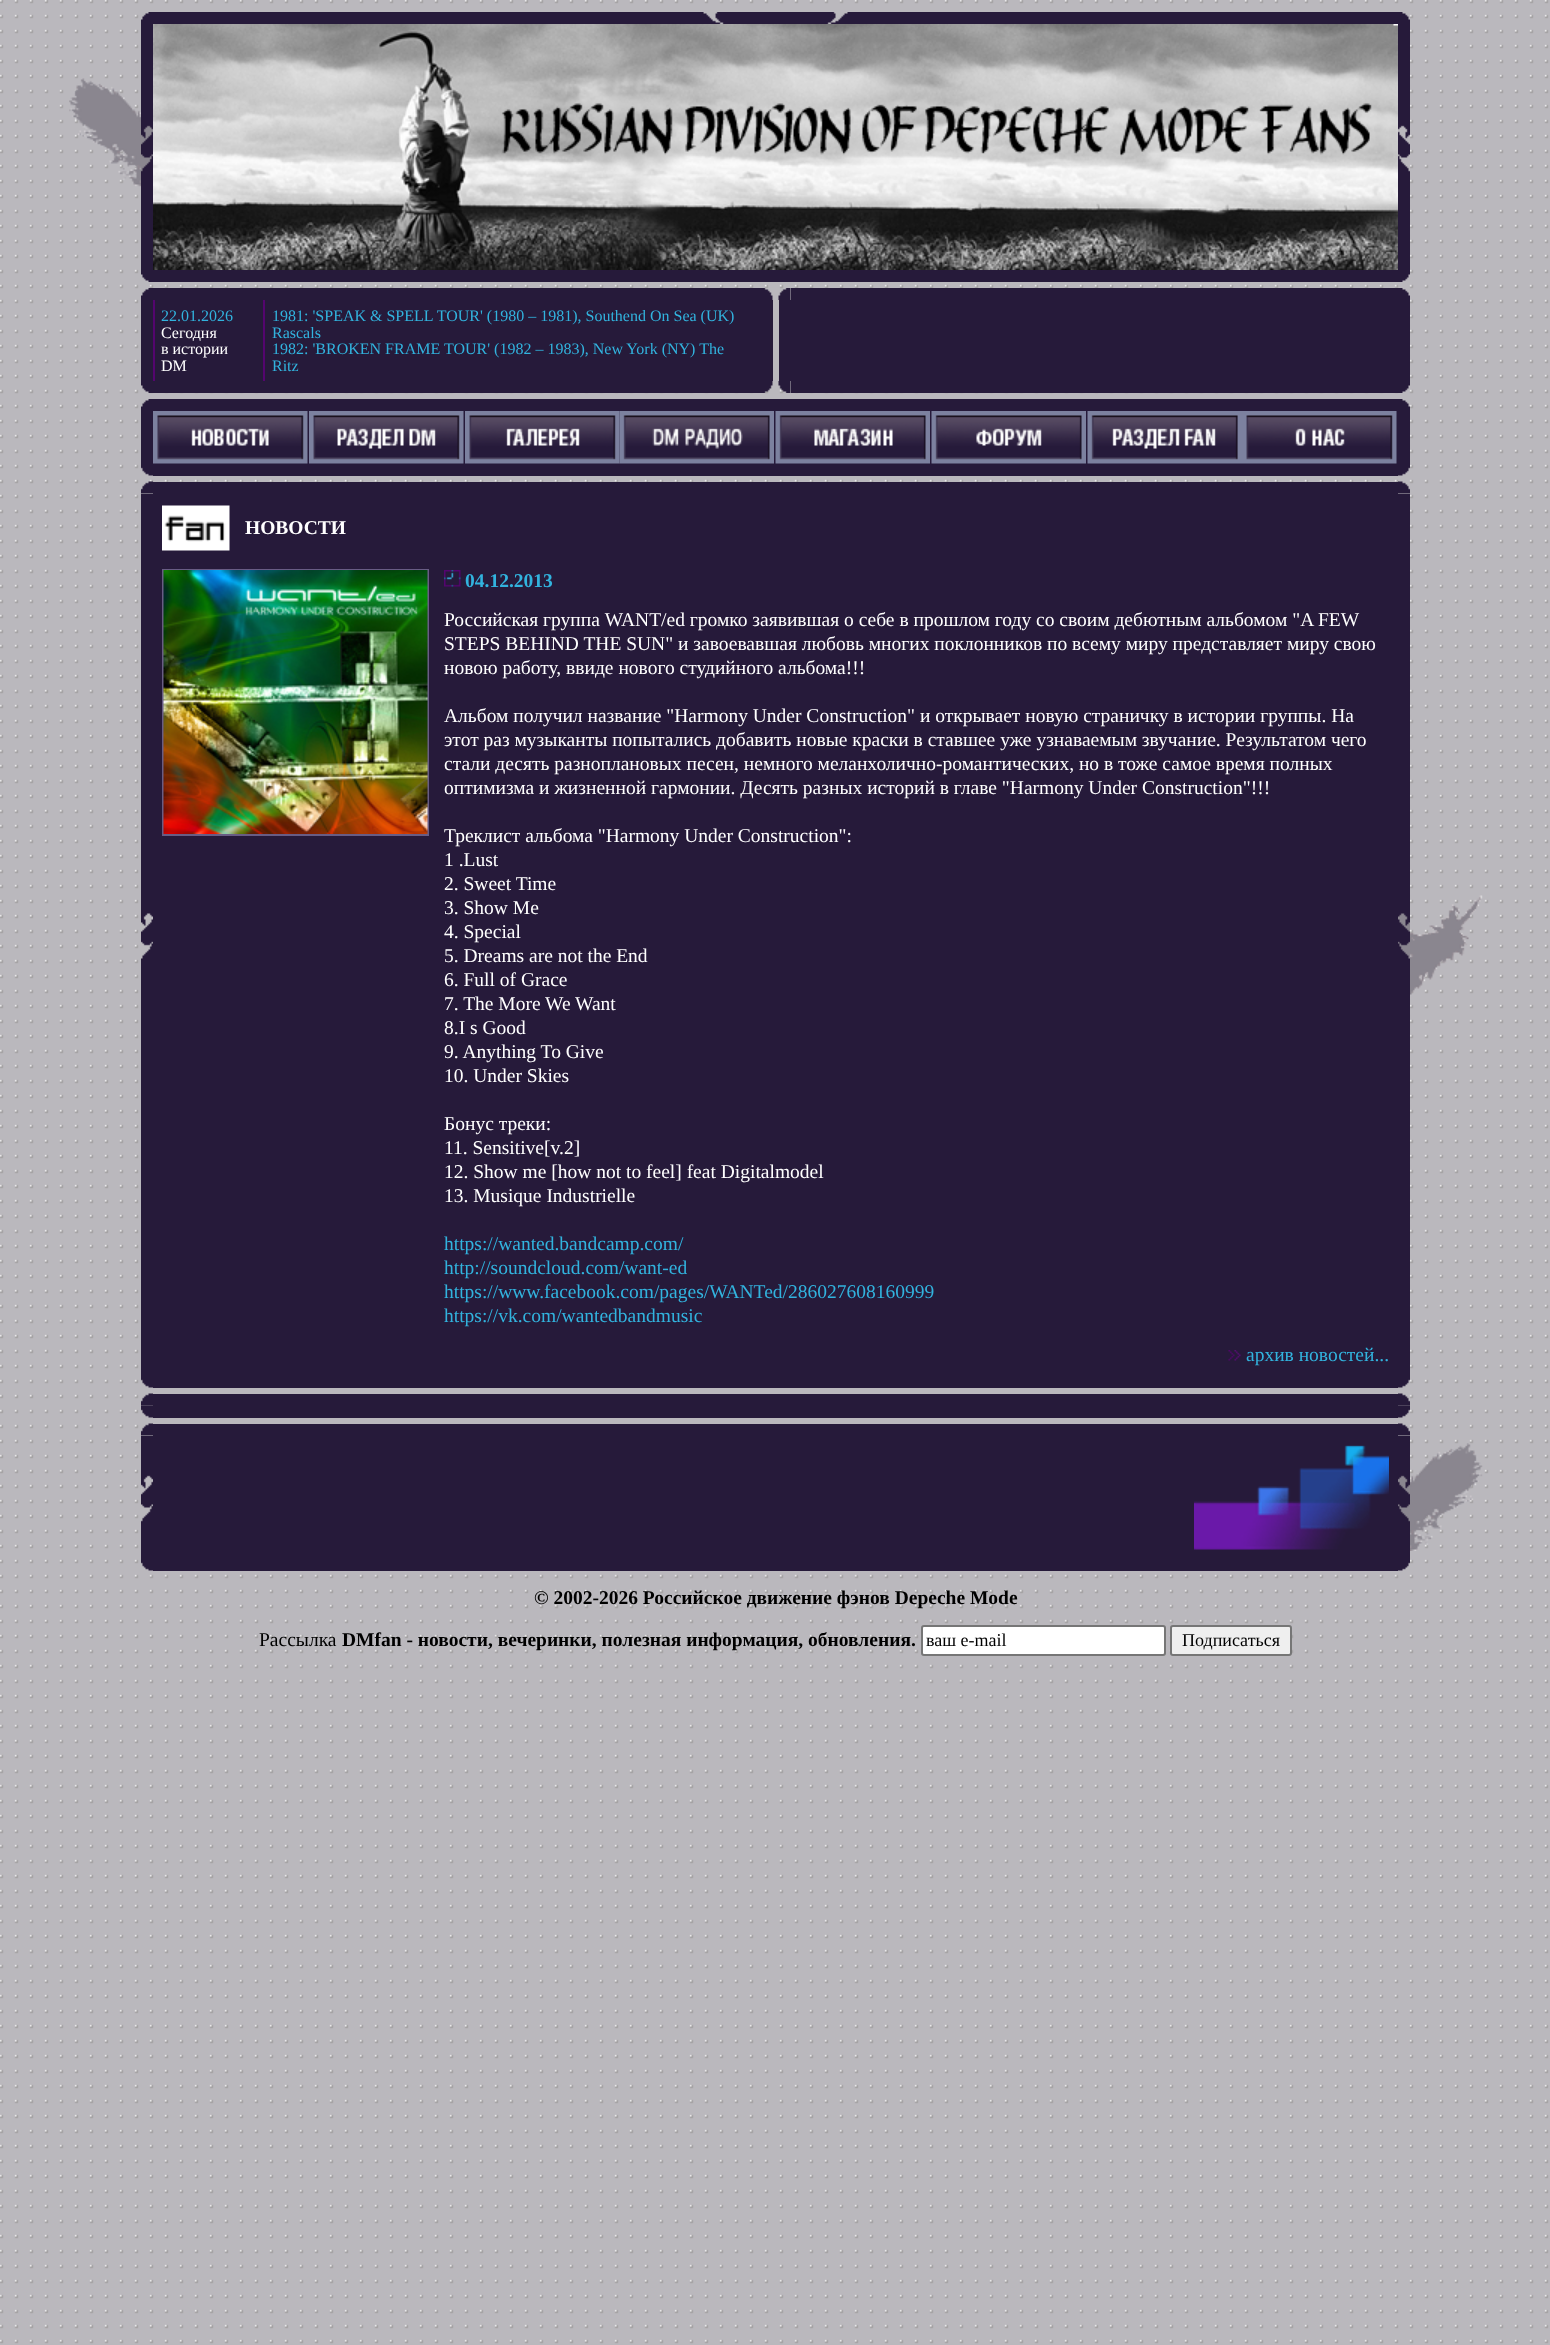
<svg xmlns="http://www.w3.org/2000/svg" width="1550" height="2345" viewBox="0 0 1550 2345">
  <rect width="100%" height="100%" fill="rgb(186,184,189)"/>
  <image x="0" y="0" width="1549" height="2344" href="pic1.png"/>
  <image x="141" y="12" width="12" height="12" href="pic2.png"/>
  <rect x="153" y="12" width="1245" height="12" fill="rgb(38,26,58)"/>
  <image x="703" y="12" width="21" height="12" href="pic3.png"/>
  <image x="827" y="12" width="21" height="12" href="pic4.png"/>
  <image x="1398" y="12" width="12" height="12" href="pic5.png"/>
  <image x="69" y="78" width="72" height="109" href="pic6.png"/>
  <rect x="141" y="24" width="12" height="246" fill="rgb(38,26,58)"/>
  <image x="141" y="125" width="12" height="47" href="pic7.png"/>
  <image x="153" y="24" width="1245" height="246" href="pic8.png"/>
  <rect x="1398" y="24" width="12" height="246" fill="rgb(38,26,58)"/>
  <image x="1398" y="125" width="12" height="47" href="pic9.png"/>
  <image x="141" y="270" width="12" height="12" href="pic10.png"/>
  <rect x="153" y="270" width="1245" height="12" fill="rgb(38,26,58)"/>
  <image x="1398" y="270" width="12" height="12" href="pic11.png"/>
  <image x="141" y="288" width="12" height="12" href="pic2.png"/>
  <rect x="153" y="288" width="608" height="12" fill="rgb(38,26,58)"/>
  <image x="761" y="288" width="12" height="12" href="pic12.png"/>
  <image x="778" y="288" width="13" height="12" href="pic13.png"/>
  <rect x="791" y="288" width="607" height="12" fill="rgb(38,26,58)"/>
  <image x="1398" y="288" width="12" height="12" href="pic14.png"/>
  <rect x="141" y="300" width="12" height="81" fill="rgb(38,26,58)"/>
  <rect x="155" y="300" width="618" height="81" fill="rgb(38,26,58)"/>
  <rect x="153" y="300" width="2" height="83" fill="rgb(84,5,111)"/>
  <text x="161" y="321" font-family="Liberation Serif" font-size="16" fill="rgb(50,179,222)">22.01.2026</text>
  <g font-family="Liberation Serif" font-size="16" fill="rgb(255,255,255)">
    <text>
      <tspan x="161" y="338">Сегодня</tspan>
      <tspan x="161" y="354">в истории</tspan>
      <tspan x="161" y="371">DM</tspan>
    </text>
  </g>
  <rect x="263" y="300" width="2" height="83" fill="rgb(84,5,111)"/>
  <g font-family="Liberation Serif" font-size="16" fill="rgb(50,179,222)">
    <text>
      <tspan x="272" y="321">1981: 'SPEAK &amp; SPELL TOUR' (1980 – 1981), Southend On Sea (UK)</tspan>
      <tspan x="272" y="338">Rascals</tspan>
      <tspan x="272" y="354">1982: 'BROKEN FRAME TOUR' (1982 – 1983), New York (NY) The</tspan>
      <tspan x="272" y="371">Ritz</tspan>
    </text>
  </g>
  <rect x="779" y="300" width="631" height="81" fill="rgb(38,26,58)"/>
  <image x="141" y="381" width="12" height="12" href="pic10.png"/>
  <rect x="153" y="381" width="608" height="12" fill="rgb(38,26,58)"/>
  <image x="761" y="381" width="12" height="12" href="pic15.png"/>
  <image x="778" y="381" width="13" height="12" href="pic16.png"/>
  <rect x="791" y="381" width="607" height="12" fill="rgb(38,26,58)"/>
  <image x="1398" y="381" width="12" height="12" href="pic17.png"/>
  <image x="141" y="399" width="12" height="12" href="pic2.png"/>
  <rect x="153" y="399" width="1245" height="12" fill="rgb(38,26,58)"/>
  <image x="1398" y="399" width="12" height="12" href="pic18.png"/>
  <rect x="141" y="411" width="947" height="53" fill="rgb(38,26,58)"/>
  <image x="153" y="411" width="155" height="53" href="pic19.png"/>
  <image x="309" y="411" width="155" height="53" href="pic20.png"/>
  <image x="465" y="411" width="155" height="53" href="pic21.png"/>
  <image x="619" y="411" width="155" height="53" href="pic22.png"/>
  <image x="775" y="411" width="155" height="53" href="pic23.png"/>
  <image x="931" y="411" width="155" height="53" href="pic24.png"/>
  <rect x="1088" y="463" width="154" height="1" fill="rgb(38,26,58)"/>
  <image x="1087" y="411" width="155" height="53" href="pic25.png"/>
  <rect x="1242" y="411" width="168" height="53" fill="rgb(38,26,58)"/>
  <image x="1242" y="411" width="155" height="53" href="pic26.png"/>
  <image x="141" y="464" width="12" height="12" href="pic27.png"/>
  <rect x="153" y="464" width="1245" height="12" fill="rgb(38,26,58)"/>
  <image x="1398" y="464" width="12" height="12" href="pic28.png"/>
  <image x="141" y="481" width="12" height="13" href="pic29.png"/>
  <rect x="153" y="482" width="1245" height="12" fill="rgb(38,26,58)"/>
  <image x="1398" y="481" width="12" height="13" href="pic30.png"/>
  <rect x="141" y="494" width="1269" height="882" fill="rgb(38,26,58)"/>
  <image x="141" y="913" width="12" height="46" href="pic31.png"/>
  <image x="162" y="505" width="68" height="46" href="pic32.png"/>
  <text x="245" y="534" font-family="Liberation Serif" font-size="19.5" font-weight="bold" fill="rgb(255,255,255)">НОВОСТИ</text>
  <rect x="163" y="570" width="265" height="265" fill="none" stroke="rgb(104,92,132)" stroke-width="2"/>
  <image x="163" y="570" width="265" height="264" href="pic33.png"/>
  <image x="444" y="570" width="17" height="17" href="pic34.png"/>
  <text x="465" y="587" font-family="Liberation Serif" font-size="19.5" font-weight="bold" fill="rgb(50,179,222)">04.12.2013</text>
  <g font-family="Liberation Serif" font-size="19.5" fill="rgb(255,255,255)">
    <text>
      <tspan x="444" y="626">Российская группа WANT/ed громко заявившая о себе в прошлом году со своим дебютным альбомом "A FEW</tspan>
      <tspan x="444" y="650">STEPS BEHIND THE SUN" и завоевавшая любовь многих поклонников по всему миру представляет миру свою</tspan>
      <tspan x="444" y="674">новою работу, ввиде нового студийного альбома!!!</tspan>
    </text>
    <text>
      <tspan x="444" y="722">Альбом получил название "Harmony Under Construction" и открывает новую страничку в истории группы. На</tspan>
      <tspan x="444" y="746">этот раз музыканты попытались добавить новые краски в ставшее уже узнаваемым звучание. Результатом чего</tspan>
      <tspan x="444" y="770">стали десять разноплановых песен, немного меланхолично-романтических, но в тоже самое время полных</tspan>
      <tspan x="444" y="794">оптимизма и жизненной гармонии. Десять разных историй в главе "Harmony Under Construction"!!!</tspan>
    </text>
    <text>
      <tspan x="444" y="842">Треклист альбома "Harmony Under Construction":</tspan>
      <tspan x="444" y="866">1 .Lust</tspan>
      <tspan x="444" y="890">2. Sweet Time</tspan>
      <tspan x="444" y="914">3. Show Me</tspan>
      <tspan x="444" y="938">4. Special</tspan>
      <tspan x="444" y="962">5. Dreams are not the End</tspan>
      <tspan x="444" y="986">6. Full of Grace</tspan>
      <tspan x="444" y="1010">7. The More We Want</tspan>
      <tspan x="444" y="1034">8.I s Good</tspan>
      <tspan x="444" y="1058">9. Anything To Give</tspan>
      <tspan x="444" y="1082">10. Under Skies</tspan>
    </text>
    <text>
      <tspan x="444" y="1130">Бонус треки:</tspan>
      <tspan x="444" y="1154">11. Sensitive[v.2]</tspan>
      <tspan x="444" y="1178">12. Show me [how not to feel] feat Digitalmodel</tspan>
      <tspan x="444" y="1202">13. Musique Industrielle</tspan>
    </text>
  </g>
  <g font-family="Liberation Serif" font-size="19.5" fill="rgb(50,179,222)">
    <text>
      <tspan x="444" y="1250">https://wanted.bandcamp.com/</tspan>
      <tspan x="444" y="1274">http://soundcloud.com/want-ed</tspan>
      <tspan x="444" y="1298">https://www.facebook.com/pages/WANTed/286027608160999</tspan>
      <tspan x="444" y="1322">https://vk.com/wantedbandmusic</tspan>
    </text>
  </g>
  <image x="1228" y="1350" width="13" height="11" href="pic35.png"/>
  <text x="1246" y="1361" font-family="Liberation Serif" font-size="19.5" fill="rgb(50,179,222)">архив новостей...</text>
  <image x="1398" y="913" width="12" height="46" href="pic36.png"/>
  <image x="1410" y="895" width="73" height="100" href="pic37.png"/>
  <image x="141" y="1376" width="12" height="12" href="pic27.png"/>
  <rect x="153" y="1376" width="1245" height="12" fill="rgb(38,26,58)"/>
  <image x="1398" y="1376" width="12" height="12" href="pic38.png"/>
  <image x="141" y="1393" width="12" height="13" href="pic39.png"/>
  <rect x="153" y="1394" width="1245" height="24" fill="rgb(38,26,58)"/>
  <image x="1398" y="1393" width="12" height="13" href="pic40.png"/>
  <image x="141" y="1405" width="12" height="13" href="pic41.png"/>
  <image x="1398" y="1405" width="12" height="13" href="pic42.png"/>
  <image x="141" y="1423" width="12" height="13" href="pic39.png"/>
  <rect x="153" y="1424" width="1245" height="12" fill="rgb(38,26,58)"/>
  <image x="1398" y="1423" width="12" height="13" href="pic40.png"/>
  <rect x="141" y="1436" width="12" height="123" fill="rgb(38,26,58)"/>
  <image x="141" y="1475" width="12" height="47" href="pic43.png"/>
  <rect x="153" y="1436" width="1257" height="123" fill="rgb(38,26,58)"/>
  <image x="1398" y="1475" width="12" height="47" href="pic44.png"/>
  <image x="1410" y="1443" width="73" height="108" href="pic45.png"/>
  <image x="1194" y="1445" width="195" height="105" href="pic46.png"/>
  <image x="141" y="1559" width="12" height="12" href="pic27.png"/>
  <rect x="153" y="1559" width="1245" height="12" fill="rgb(38,26,58)"/>
  <image x="1398" y="1559" width="12" height="12" href="pic28.png"/>
  <text x="534" y="1604" font-family="Liberation Serif" font-size="19.5" font-weight="bold" fill="rgb(0,0,0)">© 2002-2026 Российское движение фэнов Depeche Mode</text>
  <text x="259" y="1646" font-family="Liberation Serif" font-size="19.5" fill="rgb(0,0,0)">Рассылка</text>
  <text x="342" y="1646" font-family="Liberation Serif" font-size="19.5" font-weight="bold" fill="rgb(0,0,0)">DMfan - новости, вечеринки, полезная информация, обновления.</text>
  <rect x="922" y="1626" width="243" height="29" rx="2" fill="rgb(255,255,255)" stroke="rgb(118,118,118)" stroke-width="2"/>
  <text x="926" y="1646" font-family="Liberation Serif" font-size="18" fill="rgb(0,0,0)">ваш e-mail</text>
  <rect x="1171" y="1626" width="120" height="29" rx="2" fill="rgb(239,239,239)" stroke="rgb(118,118,118)" stroke-width="2"/>
  <text x="1182" y="1646" font-family="Liberation Serif" font-size="18" fill="rgb(0,0,0)">Подписаться</text>
</svg>
